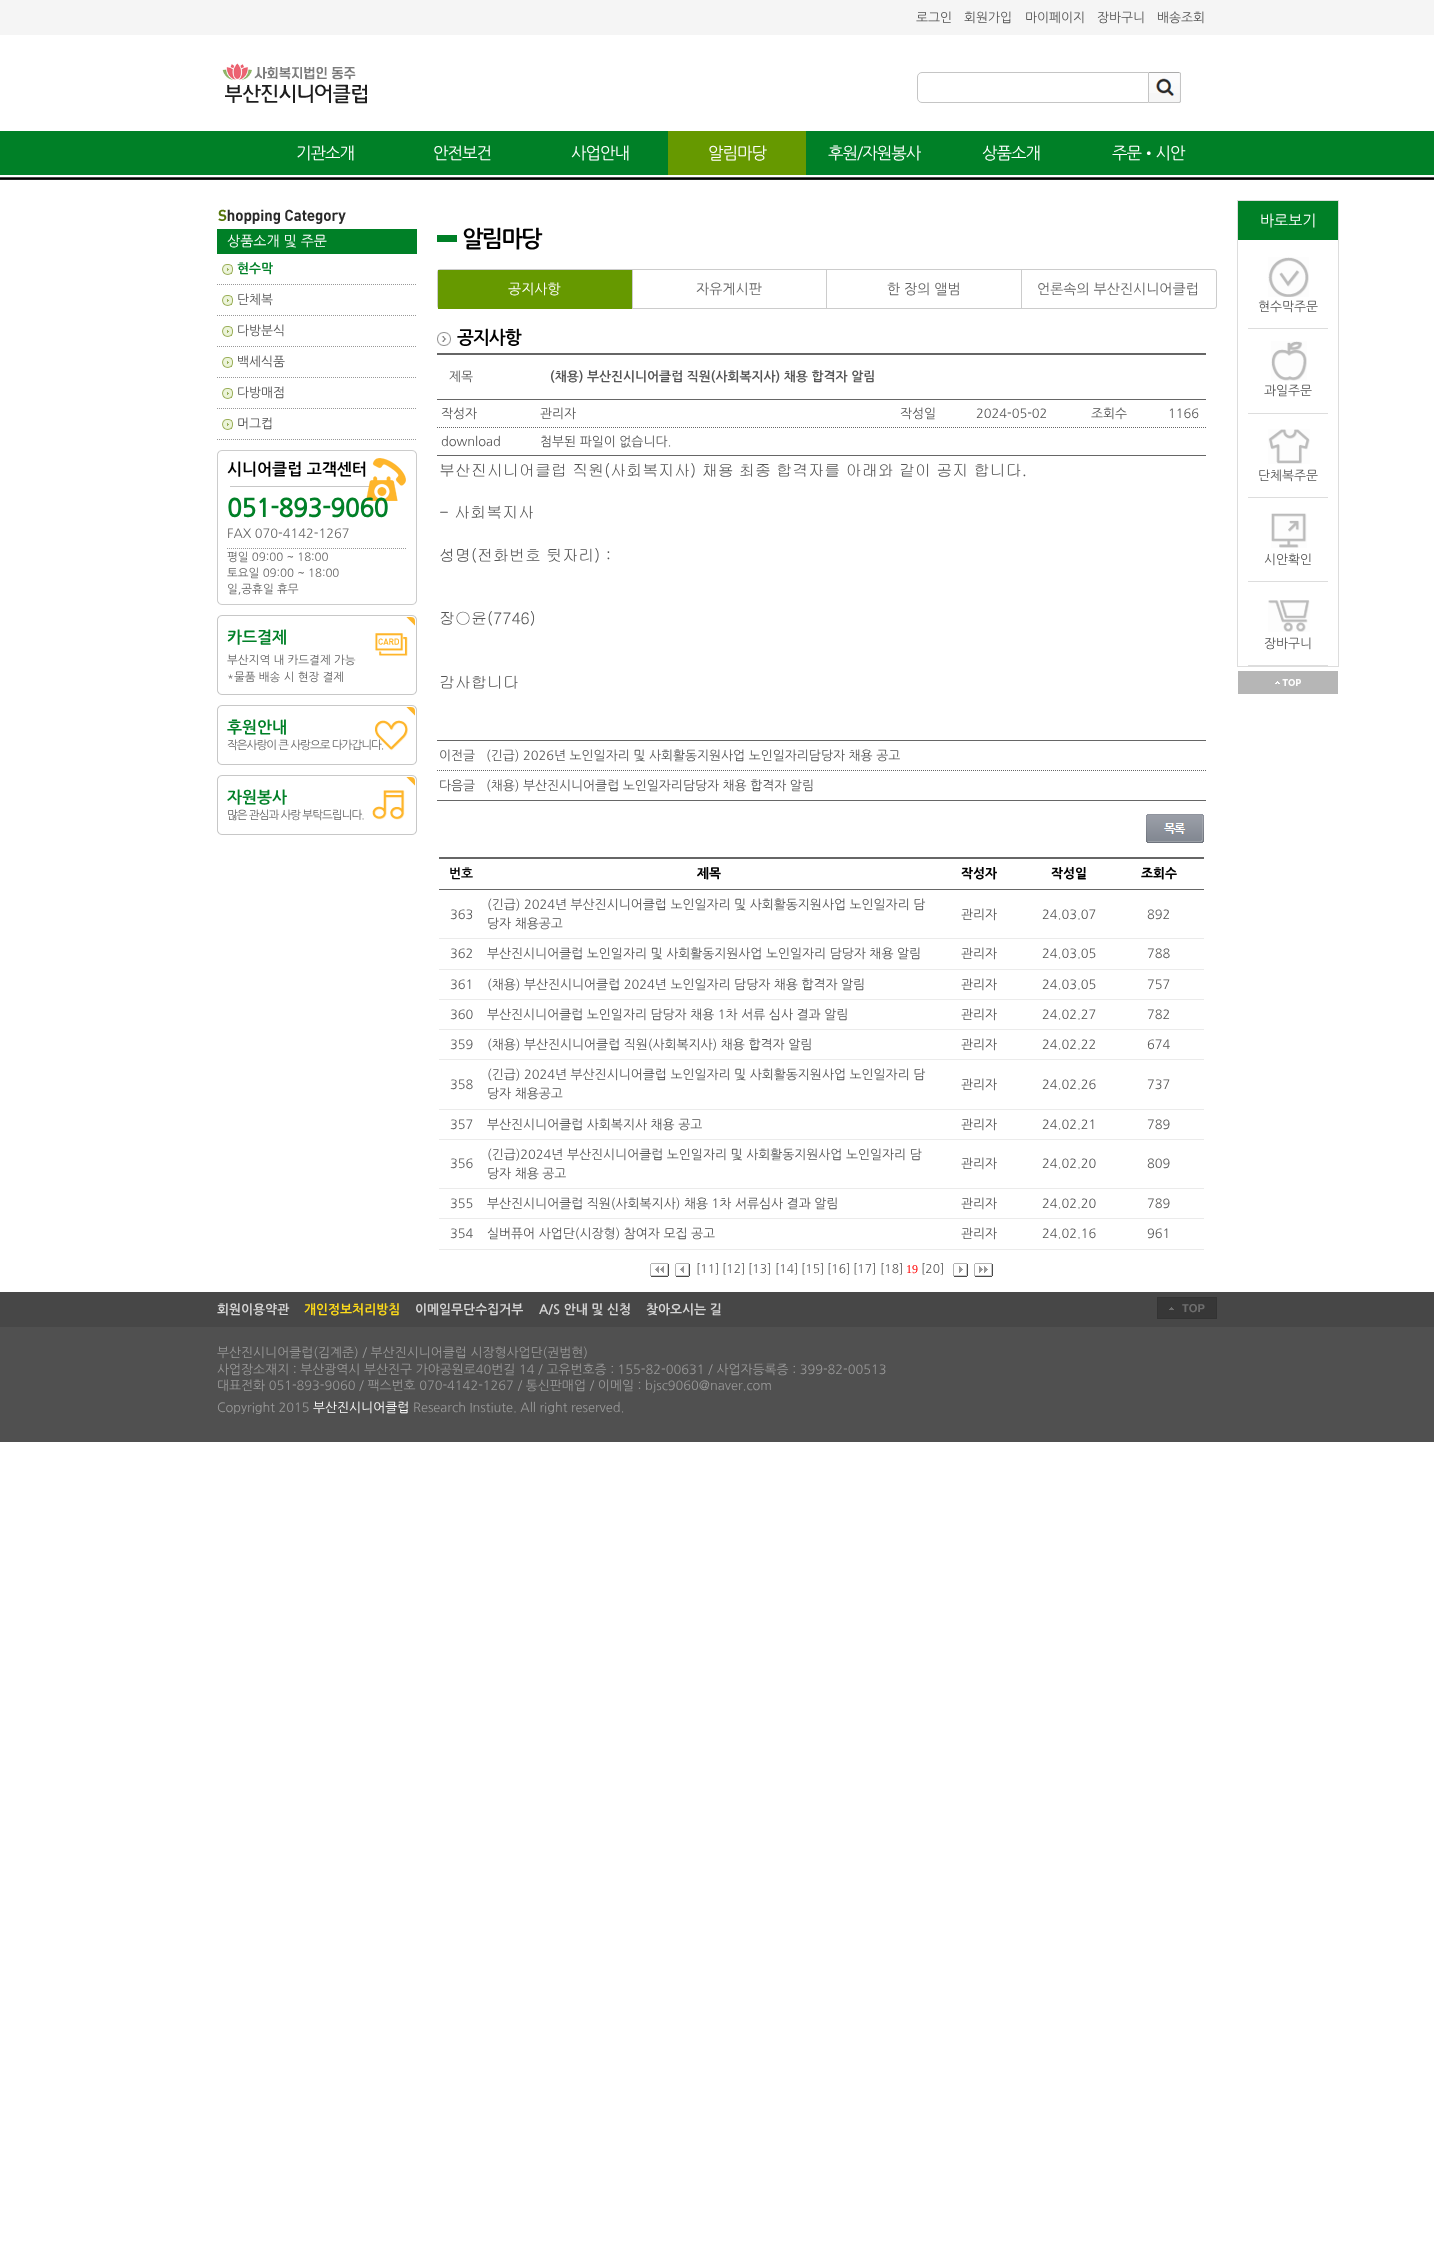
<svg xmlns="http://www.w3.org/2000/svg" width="1434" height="2266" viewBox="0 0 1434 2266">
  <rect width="100%" height="100%" fill="rgb(255,255,255)"/>
  <image x="0" y="0" width="1434" height="180" href="pic1.png"/>
  <g font-family="NanumGothic" font-size="12.8" fill="rgb(85,85,85)">
    <text x="916" y="22">로그인</text>
    <text x="964" y="22">회원가입</text>
    <text x="1025" y="22">마이페이지</text>
    <text x="1097" y="22">장바구니</text>
    <text x="1157" y="22">배송조회</text>
  </g>
  <image x="222" y="63" width="145" height="41" href="pic2.png"/>
  <path d="M922 72.5H1148.5V102.5H922C919.5 102.5 917.5 100.5 917.5 98V77C917.5 74.5 919.5 72.5 922 72.5Z" fill="none" stroke="rgb(197,197,197)"/>
  <image x="1149" y="72" width="32" height="31" href="pic3.png"/>
  <g font-family="NanumGothic" font-size="16.5" letter-spacing="-1" fill="rgb(255,255,255)">
    <text x="296" y="159">기관소개</text>
    <text x="433" y="159">안전보건</text>
    <text x="571" y="159">사업안내</text>
  </g>
  <rect x="668" y="131" width="138" height="44" fill="rgb(102,153,0)"/>
  <g font-family="NanumGothic" font-size="16.5" letter-spacing="-1" fill="rgb(255,255,255)">
    <text x="708" y="159">알림마당</text>
    <text x="828" y="159">후원/자원봉사</text>
    <text x="982" y="159">상품소개</text>
    <text x="1112" y="159">주문•시안</text>
  </g>
  <rect x="1237.5" y="200.5" width="101" height="466" fill="none" stroke="rgb(221,221,221)"/>
  <rect x="1238" y="201" width="100" height="39" fill="rgb(0,128,39)"/>
  <text x="1260" y="226" font-family="NanumGothic" font-size="15" fill="rgb(255,255,255)">바로보기</text>
  <rect x="1248" y="328" width="80" height="1" fill="rgb(221,221,221)"/>
  <image x="1268" y="257" width="41" height="40" href="pic4.png"/>
  <text x="1258" y="311" font-family="NanumGothic" font-size="12.8" fill="rgb(85,85,85)">현수막주문</text>
  <rect x="1248" y="413" width="80" height="1" fill="rgb(221,221,221)"/>
  <image x="1271" y="341" width="36" height="40" href="pic5.png"/>
  <text x="1264" y="395" font-family="NanumGothic" font-size="12.8" fill="rgb(85,85,85)">과일주문</text>
  <rect x="1248" y="497" width="80" height="1" fill="rgb(221,221,221)"/>
  <image x="1268" y="429" width="42" height="35" href="pic6.png"/>
  <text x="1258" y="480" font-family="NanumGothic" font-size="12.8" fill="rgb(85,85,85)">단체복주문</text>
  <rect x="1248" y="581" width="80" height="1" fill="rgb(221,221,221)"/>
  <image x="1271" y="513" width="36" height="35" href="pic7.png"/>
  <text x="1264" y="564" font-family="NanumGothic" font-size="12.8" fill="rgb(85,85,85)">시안확인</text>
  <rect x="1248" y="665" width="80" height="1" fill="rgb(221,221,221)"/>
  <image x="1268" y="600" width="42" height="32" href="pic8.png"/>
  <text x="1264" y="648" font-family="NanumGothic" font-size="12.8" fill="rgb(85,85,85)">장바구니</text>
  <rect x="1238" y="671" width="100" height="23" fill="rgb(182,182,182)"/>
  <image x="1275" y="679" width="26" height="7" href="pic9.png"/>
  <image x="218" y="209" width="128" height="15" href="pic10.png"/>
  <rect x="217" y="229" width="200" height="25" fill="rgb(0,128,39)"/>
  <text x="227" y="246" font-family="NanumGothic" font-size="14" fill="rgb(255,255,255)">상품소개 및 주문</text>
  <image x="222" y="264" width="11" height="11" href="pic11.png"/>
  <path d="M217 284.5H417" fill="none" stroke="rgb(153,153,153)" stroke-dasharray="1 1"/>
  <text x="237" y="273" font-family="NanumGothic" font-size="12.8" font-weight="bold" fill="rgb(0,128,39)">현수막</text>
  <image x="222" y="295" width="11" height="11" href="pic11.png"/>
  <path d="M217 315.5H417" fill="none" stroke="rgb(153,153,153)" stroke-dasharray="1 1"/>
  <text x="237" y="304" font-family="NanumGothic" font-size="12.8" fill="rgb(85,85,85)">단체복</text>
  <image x="222" y="326" width="11" height="11" href="pic11.png"/>
  <path d="M217 346.5H417" fill="none" stroke="rgb(153,153,153)" stroke-dasharray="1 1"/>
  <text x="237" y="335" font-family="NanumGothic" font-size="12.8" fill="rgb(85,85,85)">다방분식</text>
  <image x="222" y="357" width="11" height="11" href="pic11.png"/>
  <path d="M217 377.5H417" fill="none" stroke="rgb(153,153,153)" stroke-dasharray="1 1"/>
  <text x="237" y="366" font-family="NanumGothic" font-size="12.8" fill="rgb(85,85,85)">백세식품</text>
  <image x="222" y="388" width="11" height="11" href="pic11.png"/>
  <path d="M217 408.5H417" fill="none" stroke="rgb(153,153,153)" stroke-dasharray="1 1"/>
  <text x="237" y="397" font-family="NanumGothic" font-size="12.8" fill="rgb(85,85,85)">다방매점</text>
  <image x="222" y="419" width="11" height="11" href="pic11.png"/>
  <path d="M217 439.5H417" fill="none" stroke="rgb(153,153,153)" stroke-dasharray="1 1"/>
  <text x="237" y="428" font-family="NanumGothic" font-size="12.8" fill="rgb(85,85,85)">머그컵</text>
  <image x="217" y="450" width="200" height="155" href="pic12.png"/>
  <text x="227" y="475" font-family="NanumGothic" font-size="16" font-weight="bold" fill="rgb(0,0,0)">시니어클럽 고객센터</text>
  <text x="227" y="517" font-family="NanumGothic" font-size="25.5" font-weight="bold" letter-spacing="-1" fill="rgb(0,128,39)">051-893-9060</text>
  <path d="M227 548.5H407" fill="none" stroke="rgb(153,153,153)" stroke-dasharray="1 1"/>
  <text x="227" y="538" font-family="NanumGothic" font-size="12.8" fill="rgb(102,102,102)">FAX 070-4142-1267</text>
  <g font-family="NanumGothic" font-size="11.5" fill="rgb(102,102,102)">
    <text>
      <tspan x="227" y="561">평일 09:00 ~ 18:00</tspan>
      <tspan x="227" y="577">토요일 09:00 ~ 18:00</tspan>
      <tspan x="227" y="593">일,공휴일 휴무</tspan>
    </text>
  </g>
  <image x="217" y="615" width="200" height="80" href="pic13.png"/>
  <text x="227" y="643" font-family="NanumGothic" font-size="16" font-weight="bold" fill="rgb(0,128,39)">카드결제</text>
  <g font-family="NanumGothic" font-size="11.5" fill="rgb(102,102,102)">
    <text>
      <tspan x="227" y="664">부산지역 내 카드결제 가능</tspan>
      <tspan x="227" y="681">*물품 배송 시 현장 결제</tspan>
    </text>
  </g>
  <image x="217" y="705" width="200" height="60" href="pic14.png"/>
  <text x="227" y="733" font-family="NanumGothic" font-size="16" font-weight="bold" fill="rgb(0,128,39)">후원안내</text>
  <text x="227" y="749" font-family="NanumGothic" font-size="11.5" letter-spacing="-1" fill="rgb(102,102,102)">작은사랑이 큰 사랑으로 다가갑니다.</text>
  <image x="217" y="775" width="200" height="60" href="pic15.png"/>
  <text x="227" y="803" font-family="NanumGothic" font-size="16" font-weight="bold" fill="rgb(0,128,39)">자원봉사</text>
  <text x="227" y="819" font-family="NanumGothic" font-size="11.5" letter-spacing="-1" fill="rgb(102,102,102)">많은 관심과 사랑 부탁드립니다.</text>
  <rect x="437" y="235" width="20" height="7" fill="rgb(0,128,39)"/>
  <text x="462" y="247" font-family="NanumGothic" font-size="23" font-weight="bold" letter-spacing="-2" fill="rgb(0,0,0)">알림마당</text>
  <rect x="437.5" y="269.5" width="779" height="39" rx="2.5" fill="none" stroke="rgb(204,204,204)"/>
  <rect x="438" y="270" width="194" height="39" fill="rgb(102,153,0)"/>
  <rect x="632" y="270" width="1" height="39" fill="rgb(204,204,204)"/>
  <text x="508" y="294" font-family="NanumGothic" font-size="14" fill="rgb(255,255,255)">공지사항</text>
  <rect x="826" y="270" width="1" height="39" fill="rgb(204,204,204)"/>
  <text x="696" y="294" font-family="NanumGothic" font-size="14" fill="rgb(102,102,102)">자유게시판</text>
  <rect x="1021" y="270" width="1" height="39" fill="rgb(204,204,204)"/>
  <g font-family="NanumGothic" font-size="14" fill="rgb(102,102,102)">
    <text x="887" y="294">한 장의 앨범</text>
    <text x="1037" y="294">언론속의 부산진시니어클럽</text>
  </g>
  <image x="437" y="332" width="14" height="14" href="pic16.png"/>
  <text x="457" y="344" font-family="NanumGothic" font-size="18" font-weight="bold" letter-spacing="-1" fill="rgb(0,0,0)">공지사항</text>
  <rect x="437" y="353" width="769" height="2" fill="rgb(102,102,102)"/>
  <text x="449" y="381" font-family="NanumGothic" font-size="12.8" fill="rgb(85,85,85)">제목</text>
  <text x="550" y="381" font-family="NanumGothic" font-size="12.8" font-weight="bold" fill="rgb(85,85,85)">(채용) 부산진시니어클럽 직원(사회복지사) 채용 합격자 알림</text>
  <rect x="437" y="399" width="769" height="1" fill="rgb(102,102,102)"/>
  <g font-family="NanumGothic" font-size="12.8" fill="rgb(85,85,85)">
    <text x="441" y="418">작성자</text>
    <text x="540" y="418">관리자</text>
    <text x="900" y="418">작성일</text>
    <text x="976" y="418">2024-05-02</text>
    <text x="1091" y="418">조회수</text>
    <text x="1168" y="418">1166</text>
  </g>
  <path d="M437 427.5H1206" fill="none" stroke="rgb(102,102,102)" stroke-dasharray="1 1"/>
  <g font-family="NanumGothic" font-size="12.8" fill="rgb(85,85,85)">
    <text x="441" y="446">download</text>
    <text x="540" y="446">첨부된 파일이 없습니다.</text>
  </g>
  <rect x="437" y="455" width="769" height="1" fill="rgb(102,102,102)"/>
  <g font-family="Gulim" font-size="16" fill="rgb(85,85,85)">
    <text x="439" y="476">부산진시니어클럽 직원(사회복지사) 채용 최종 합격자를 아래와 같이 공지 합니다.</text>
    <text x="439" y="518">- 사회복지사</text>
    <text x="439" y="561">성명(전화번호 뒷자리) :</text>
    <text x="439" y="624">장○윤(7746)</text>
    <text x="439" y="688">감사합니다</text>
  </g>
  <rect x="437" y="740" width="769" height="1" fill="rgb(102,102,102)"/>
  <g font-family="NanumGothic" font-size="12.8" fill="rgb(85,85,85)">
    <text x="439" y="760">이전글</text>
    <text x="486" y="760">(긴급) 2026년 노인일자리 및 사회활동지원사업 노인일자리담당자 채용 공고</text>
  </g>
  <path d="M437 770.5H1206" fill="none" stroke="rgb(102,102,102)" stroke-dasharray="1 1"/>
  <g font-family="NanumGothic" font-size="12.8" fill="rgb(85,85,85)">
    <text x="439" y="790">다음글</text>
    <text x="486" y="790">(채용) 부산진시니어클럽 노인일자리담당자 채용 합격자 알림</text>
  </g>
  <rect x="437" y="800" width="769" height="1" fill="rgb(102,102,102)"/>
  <image x="1146" y="814" width="58" height="29" href="pic17.png"/>
  <rect x="439" y="857" width="765" height="2" fill="rgb(102,102,102)"/>
  <text x="449" y="878" font-family="NanumGothic" font-size="12.8" font-weight="bold" fill="rgb(0,0,0)">번호</text>
  <g font-family="NanumGothic" font-size="12.8" font-weight="800" fill="rgb(0,0,0)">
    <text x="697" y="878">제목</text>
    <text x="961" y="878">작성자</text>
    <text x="1051" y="878">작성일</text>
    <text x="1141" y="878">조회수</text>
  </g>
  <rect x="439" y="889" width="765" height="1" fill="rgb(102,102,102)"/>
  <g font-family="NanumGothic" font-size="12.8" fill="rgb(85,85,85)">
    <text x="450" y="919">363</text>
    <text>
      <tspan x="487" y="909">(긴급) 2024년 부산진시니어클럽 노인일자리 및 사회활동지원사업 노인일자리 담</tspan>
      <tspan x="487" y="928">당자 채용공고</tspan>
    </text>
    <text x="961" y="919">관리자</text>
    <text x="1042" y="919">24.03.07</text>
    <text x="1147" y="919">892</text>
  </g>
  <rect x="439" y="938" width="765" height="1" fill="rgb(235,235,235)"/>
  <g font-family="NanumGothic" font-size="12.8" fill="rgb(85,85,85)">
    <text x="450" y="958">362</text>
    <text x="487" y="958">부산진시니어클럽 노인일자리 및 사회활동지원사업 노인일자리 담당자 채용 알림</text>
    <text x="961" y="958">관리자</text>
    <text x="1042" y="958">24.03.05</text>
    <text x="1147" y="958">788</text>
  </g>
  <rect x="439" y="969" width="765" height="1" fill="rgb(235,235,235)"/>
  <g font-family="NanumGothic" font-size="12.8" fill="rgb(85,85,85)">
    <text x="450" y="989">361</text>
    <text x="487" y="989">(채용) 부산진시니어클럽 2024년 노인일자리 담당자 채용 합격자 알림</text>
    <text x="961" y="989">관리자</text>
    <text x="1042" y="989">24.03.05</text>
    <text x="1147" y="989">757</text>
  </g>
  <rect x="439" y="999" width="765" height="1" fill="rgb(235,235,235)"/>
  <g font-family="NanumGothic" font-size="12.8" fill="rgb(85,85,85)">
    <text x="450" y="1019">360</text>
    <text x="487" y="1019">부산진시니어클럽 노인일자리 담당자 채용 1차 서류 심사 결과 알림</text>
    <text x="961" y="1019">관리자</text>
    <text x="1042" y="1019">24.02.27</text>
    <text x="1147" y="1019">782</text>
  </g>
  <rect x="439" y="1029" width="765" height="1" fill="rgb(235,235,235)"/>
  <g font-family="NanumGothic" font-size="12.8" fill="rgb(85,85,85)">
    <text x="450" y="1049">359</text>
    <text x="487" y="1049">(채용) 부산진시니어클럽 직원(사회복지사) 채용 합격자 알림</text>
    <text x="961" y="1049">관리자</text>
    <text x="1042" y="1049">24.02.22</text>
    <text x="1147" y="1049">674</text>
  </g>
  <rect x="439" y="1059" width="765" height="1" fill="rgb(235,235,235)"/>
  <g font-family="NanumGothic" font-size="12.8" fill="rgb(85,85,85)">
    <text x="450" y="1089">358</text>
    <text>
      <tspan x="487" y="1079">(긴급) 2024년 부산진시니어클럽 노인일자리 및 사회활동지원사업 노인일자리 담</tspan>
      <tspan x="487" y="1098">당자 채용공고</tspan>
    </text>
    <text x="961" y="1089">관리자</text>
    <text x="1042" y="1089">24.02.26</text>
    <text x="1147" y="1089">737</text>
  </g>
  <rect x="439" y="1109" width="765" height="1" fill="rgb(235,235,235)"/>
  <g font-family="NanumGothic" font-size="12.8" fill="rgb(85,85,85)">
    <text x="450" y="1129">357</text>
    <text x="487" y="1129">부산진시니어클럽 사회복지사 채용 공고</text>
    <text x="961" y="1129">관리자</text>
    <text x="1042" y="1129">24.02.21</text>
    <text x="1147" y="1129">789</text>
  </g>
  <rect x="439" y="1139" width="765" height="1" fill="rgb(235,235,235)"/>
  <g font-family="NanumGothic" font-size="12.8" fill="rgb(85,85,85)">
    <text x="450" y="1168">356</text>
    <text>
      <tspan x="487" y="1159">(긴급)2024년 부산진시니어클럽 노인일자리 및 사회활동지원사업 노인일자리 담</tspan>
      <tspan x="487" y="1178">당자 채용 공고</tspan>
    </text>
    <text x="961" y="1168">관리자</text>
    <text x="1042" y="1168">24.02.20</text>
    <text x="1147" y="1168">809</text>
  </g>
  <rect x="439" y="1188" width="765" height="1" fill="rgb(235,235,235)"/>
  <g font-family="NanumGothic" font-size="12.8" fill="rgb(85,85,85)">
    <text x="450" y="1208">355</text>
    <text x="487" y="1208">부산진시니어클럽 직원(사회복지사) 채용 1차 서류심사 결과 알림</text>
    <text x="961" y="1208">관리자</text>
    <text x="1042" y="1208">24.02.20</text>
    <text x="1147" y="1208">789</text>
  </g>
  <rect x="439" y="1218" width="765" height="1" fill="rgb(235,235,235)"/>
  <g font-family="NanumGothic" font-size="12.8" fill="rgb(85,85,85)">
    <text x="450" y="1238">354</text>
    <text x="487" y="1238">실버퓨어 사업단(시장형) 참여자 모집 공고</text>
    <text x="961" y="1238">관리자</text>
    <text x="1042" y="1238">24.02.16</text>
    <text x="1147" y="1238">961</text>
  </g>
  <rect x="439" y="1249" width="765" height="1" fill="rgb(235,235,235)"/>
  <image x="650" y="1263" width="19" height="14" href="pic18.png"/>
  <image x="675" y="1263" width="15" height="14" href="pic19.png"/>
  <g font-family="NanumGothic" font-size="12" fill="rgb(85,85,85)">
    <text x="696" y="1273">[11]</text>
    <text x="722" y="1273">[12]</text>
    <text x="748" y="1273">[13]</text>
    <text x="775" y="1273">[14]</text>
    <text x="801" y="1273">[15]</text>
    <text x="827" y="1273">[16]</text>
    <text x="853" y="1273">[17]</text>
    <text x="880" y="1273">[18]</text>
  </g>
  <text x="906" y="1273" font-family="Liberation Serif" font-size="12" fill="rgb(255,0,0)">19</text>
  <text x="921" y="1273" font-family="NanumGothic" font-size="12" fill="rgb(85,85,85)">[20]</text>
  <image x="953" y="1263" width="15" height="14" href="pic20.png"/>
  <image x="974" y="1263" width="19" height="14" href="pic21.png"/>
  <image x="0" y="1292" width="1434" height="150" href="pic22.png"/>
  <text x="217" y="1314" font-family="NanumGothic" font-size="12.8" font-weight="bold" fill="rgb(213,213,213)">회원이용약관</text>
  <text x="304" y="1314" font-family="NanumGothic" font-size="12.8" font-weight="bold" fill="rgb(255,220,26)">개인정보처리방침</text>
  <g font-family="NanumGothic" font-size="12.8" font-weight="bold" fill="rgb(213,213,213)">
    <text x="415" y="1314">이메일무단수집거부</text>
    <text x="539" y="1314">A/S 안내 및 신청</text>
    <text x="646" y="1314">찾아오시는 길</text>
  </g>
  <image x="1157" y="1297" width="60" height="22" href="pic23.png"/>
  <g font-family="NanumGothic" font-size="12.8" fill="rgb(153,153,153)">
    <text>
      <tspan x="217" y="1357">부산진시니어클럽(김계준) / 부산진시니어클럽 시장형사업단(권범현)</tspan>
      <tspan x="217" y="1374">사업장소재지 : 부산광역시 부산진구 가야공원로40번길 14 / 고유번호증 : 155-82-00631 / 사업자등록증 : 399-82-00513</tspan>
      <tspan x="217" y="1390">대표전화 051-893-9060 / 팩스번호 070-4142-1267 / 통신판매업 / 이메일 : bjsc9060@naver.com</tspan>
      <tspan x="217" y="1412">Copyright 2015</tspan>
    </text>
  </g>
  <text x="313" y="1412" font-family="NanumGothic" font-size="12.8" fill="rgb(255,255,255)">부산진시니어클럽</text>
  <text x="413" y="1412" font-family="NanumGothic" font-size="12.8" fill="rgb(153,153,153)">Research Instiute. All right reserved.</text>
</svg>
